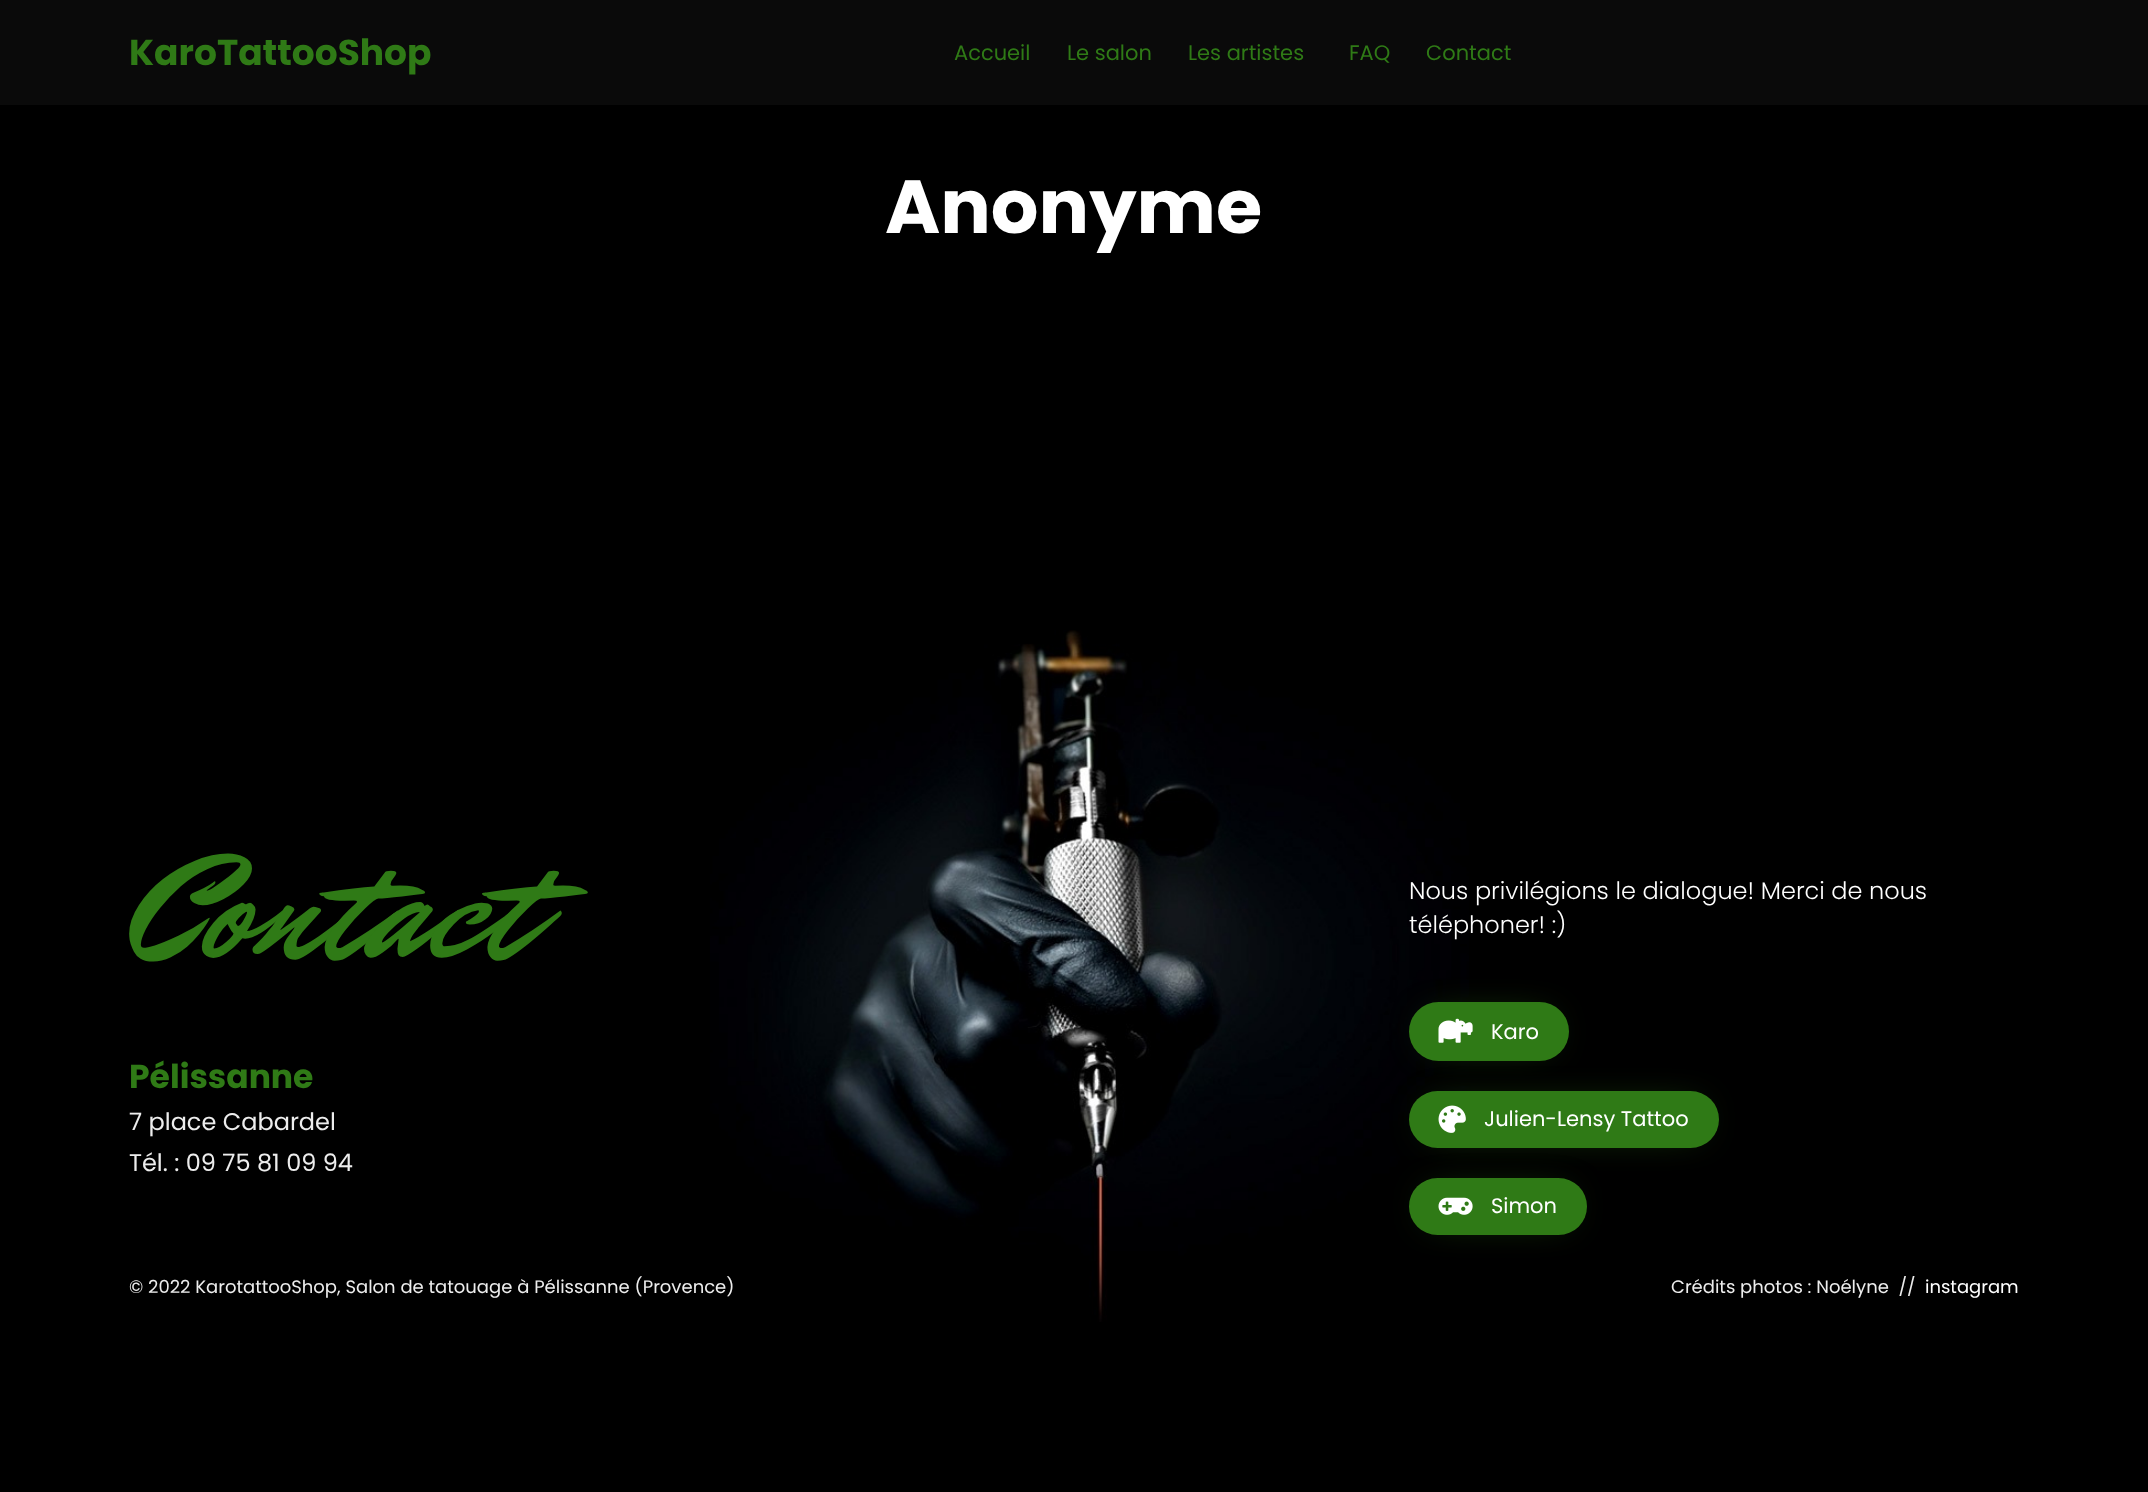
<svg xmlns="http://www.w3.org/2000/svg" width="2148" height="1492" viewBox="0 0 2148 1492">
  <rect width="100%" height="100%" fill="rgb(0,0,0)"/>
  <rect x="0" y="0" width="2148" height="105" fill="rgb(10,10,10)"/>
  <text x="129" y="65" font-family="Poppins" font-size="36" font-weight="bold" fill="rgb(47,122,22)">KaroTattooShop</text>
  <g font-family="Poppins" font-size="21" fill="rgb(47,122,22)">
    <text x="954" y="60">Accueil</text>
    <text x="1067" y="60">Le salon</text>
    <text x="1188" y="60">Les artistes</text>
    <text x="1349" y="60">FAQ</text>
    <text x="1426" y="60">Contact</text>
  </g>
  <text x="885" y="233" font-family="Poppins" font-size="75" font-weight="bold" fill="rgb(255,255,255)">Anonyme</text>
  <image x="710" y="630" width="759" height="692" href="pic1.png"/>
  <text x="129" y="955" font-family="Mr Dafoe" font-size="150" fill="rgb(47,122,22)">Contact</text>
  <text x="129" y="1088" font-family="Poppins" font-size="33" font-weight="bold" fill="rgb(47,122,22)">Pélissanne</text>
  <g font-family="Poppins" font-size="24" fill="rgb(237,237,237)">
    <text>
      <tspan x="129" y="1130">7 place Cabardel</tspan>
      <tspan x="129" y="1171">Tél. : 09 75 81 09 94</tspan>
    </text>
  </g>
  <g font-family="Poppins" font-size="24" font-weight="300" fill="rgb(255,255,255)">
    <text>
      <tspan x="1409" y="899">Nous privilégions le dialogue! Merci de nous</tspan>
      <tspan x="1409" y="933">téléphoner! :)</tspan>
    </text>
  </g>
  <rect x="1430" y="1023" width="118" height="17" rx="8.5" fill="rgb(47,122,22)" filter="blur(19px)"/>
  <rect x="1409" y="1002" width="160" height="59" rx="29.5" fill="rgb(47,122,22)"/>
  <image x="1438" y="1018" width="35" height="25" href="pic2.png"/>
  <text x="1491" y="1039" font-family="Poppins" font-size="21" fill="rgb(255,255,255)">Karo</text>
  <rect x="1430" y="1112" width="268" height="15" rx="7.5" fill="rgb(47,122,22)" filter="blur(19px)"/>
  <rect x="1409" y="1091" width="310" height="57" rx="28.5" fill="rgb(47,122,22)"/>
  <image x="1438" y="1105" width="28" height="28" href="pic3.png"/>
  <text x="1484" y="1126" font-family="Poppins" font-size="21" fill="rgb(255,255,255)">Julien-Lensy Tattoo</text>
  <rect x="1430" y="1199" width="136" height="15" rx="7.5" fill="rgb(47,122,22)" filter="blur(19px)"/>
  <rect x="1409" y="1178" width="178" height="57" rx="28.5" fill="rgb(47,122,22)"/>
  <image x="1438" y="1197" width="35" height="18" href="pic4.png"/>
  <text x="1491" y="1213" font-family="Poppins" font-size="21" fill="rgb(255,255,255)">Simon</text>
  <g font-family="Poppins" font-size="18" fill="rgb(237,237,237)">
    <text x="129" y="1293">© 2022 KarotattooShop, Salon de tatouage à Pélissanne (Provence)</text>
    <text x="1671" y="1293" xml:space="preserve">Crédits photos : Noélyne  //</text>
  </g>
  <text x="1925" y="1293" font-family="Poppins" font-size="18" fill="rgb(255,255,255)">instagram</text>
</svg>
